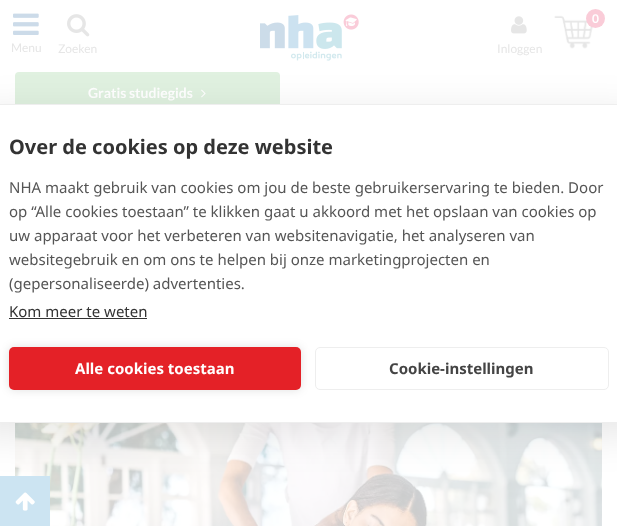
<svg xmlns="http://www.w3.org/2000/svg" width="617" height="526" viewBox="0 0 617 526">
  <rect width="100%" height="100%" fill="rgb(255,255,255)"/>
  <image x="260" y="14" width="99" height="47" href="pic1.png"/>
  <image x="554" y="15" width="39" height="34" href="pic2.png"/>
  <circle cx="595.5" cy="18.5" r="9.5" fill="rgb(250,204,216)"/>
  <text x="592" y="23" font-family="Lato" font-size="12" font-weight="bold" fill="rgb(255,255,255)">0</text>
  <image x="13" y="13" width="26" height="22" href="pic3.png"/>
  <text x="11" y="52" font-family="Lato" font-size="12" fill="rgb(230,230,230)">Menu</text>
  <image x="67" y="14" width="23" height="23" href="pic4.png"/>
  <text x="58" y="53" font-family="Lato" font-size="12" fill="rgb(230,230,230)">Zoeken</text>
  <image x="511" y="16" width="16" height="18" href="pic5.png"/>
  <text x="497" y="53" font-family="Lato" font-size="12" fill="rgb(230,230,230)">Inloggen</text>
  <rect x="15" y="72" width="265" height="42" rx="4" fill="rgb(224,241,224)"/>
  <text x="88" y="98" font-family="Lato" font-size="14" font-weight="bold" fill="rgb(255,255,255)">Gratis studiegids</text>
  <image x="201" y="89" width="5" height="9" href="pic6.png"/>
  <image x="15" y="423" width="587" height="103" href="pic7.png"/>
  <rect x="0" y="476" width="50" height="50" fill="rgb(204,228,242)"/>
  <image x="15" y="492" width="20" height="19" href="pic8.png"/>
  <rect x="-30" y="114" width="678" height="319" rx="8" fill="rgba(0,0,0,0.1)" filter="blur(20px)"/>
  <rect x="-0.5" y="104.5" width="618" height="318" fill="rgb(255,255,255)" stroke="rgb(238,238,238)"/>
  <text x="9" y="154" font-family="Noto Sans" font-size="20" font-weight="bold" fill="rgb(51,51,51)">Over de cookies op deze website</text>
  <g font-family="Noto Sans" font-size="15" fill="rgb(85,85,85)">
    <text>
      <tspan x="9" y="193">NHA maakt gebruik van cookies om jou de beste gebruikerservaring te bieden. Door</tspan>
      <tspan x="9" y="217">op “Alle cookies toestaan” te klikken gaat u akkoord met het opslaan van cookies op</tspan>
      <tspan x="9" y="241">uw apparaat voor het verbeteren van websitenavigatie, het analyseren van</tspan>
      <tspan x="9" y="265">websitegebruik en om ons te helpen bij onze marketingprojecten en</tspan>
      <tspan x="9" y="289">(gepersonaliseerde) advertenties.</tspan>
    </text>
  </g>
  <text x="9" y="317" font-family="Noto Sans" font-size="15" fill="rgb(51,51,51)">Kom meer te weten</text>
  <rect x="9" y="318" width="138" height="1" fill="rgb(51,51,51)"/>
  <rect x="9" y="347" width="292" height="43" rx="5" fill="rgba(0,0,0,0.12)" filter="blur(5px)"/>
  <rect x="9" y="347" width="292" height="43" rx="5" fill="rgb(228,33,39)"/>
  <text x="75" y="374" font-family="Noto Sans" font-size="15" font-weight="bold" fill="rgb(255,255,255)">Alle cookies toestaan</text>
  <rect x="315.5" y="347.5" width="293" height="42" rx="4.5" fill="none" stroke="rgb(238,238,238)"/>
  <text x="389" y="374" font-family="Noto Sans" font-size="15" font-weight="bold" fill="rgb(68,68,68)">Cookie-instellingen</text>
</svg>
